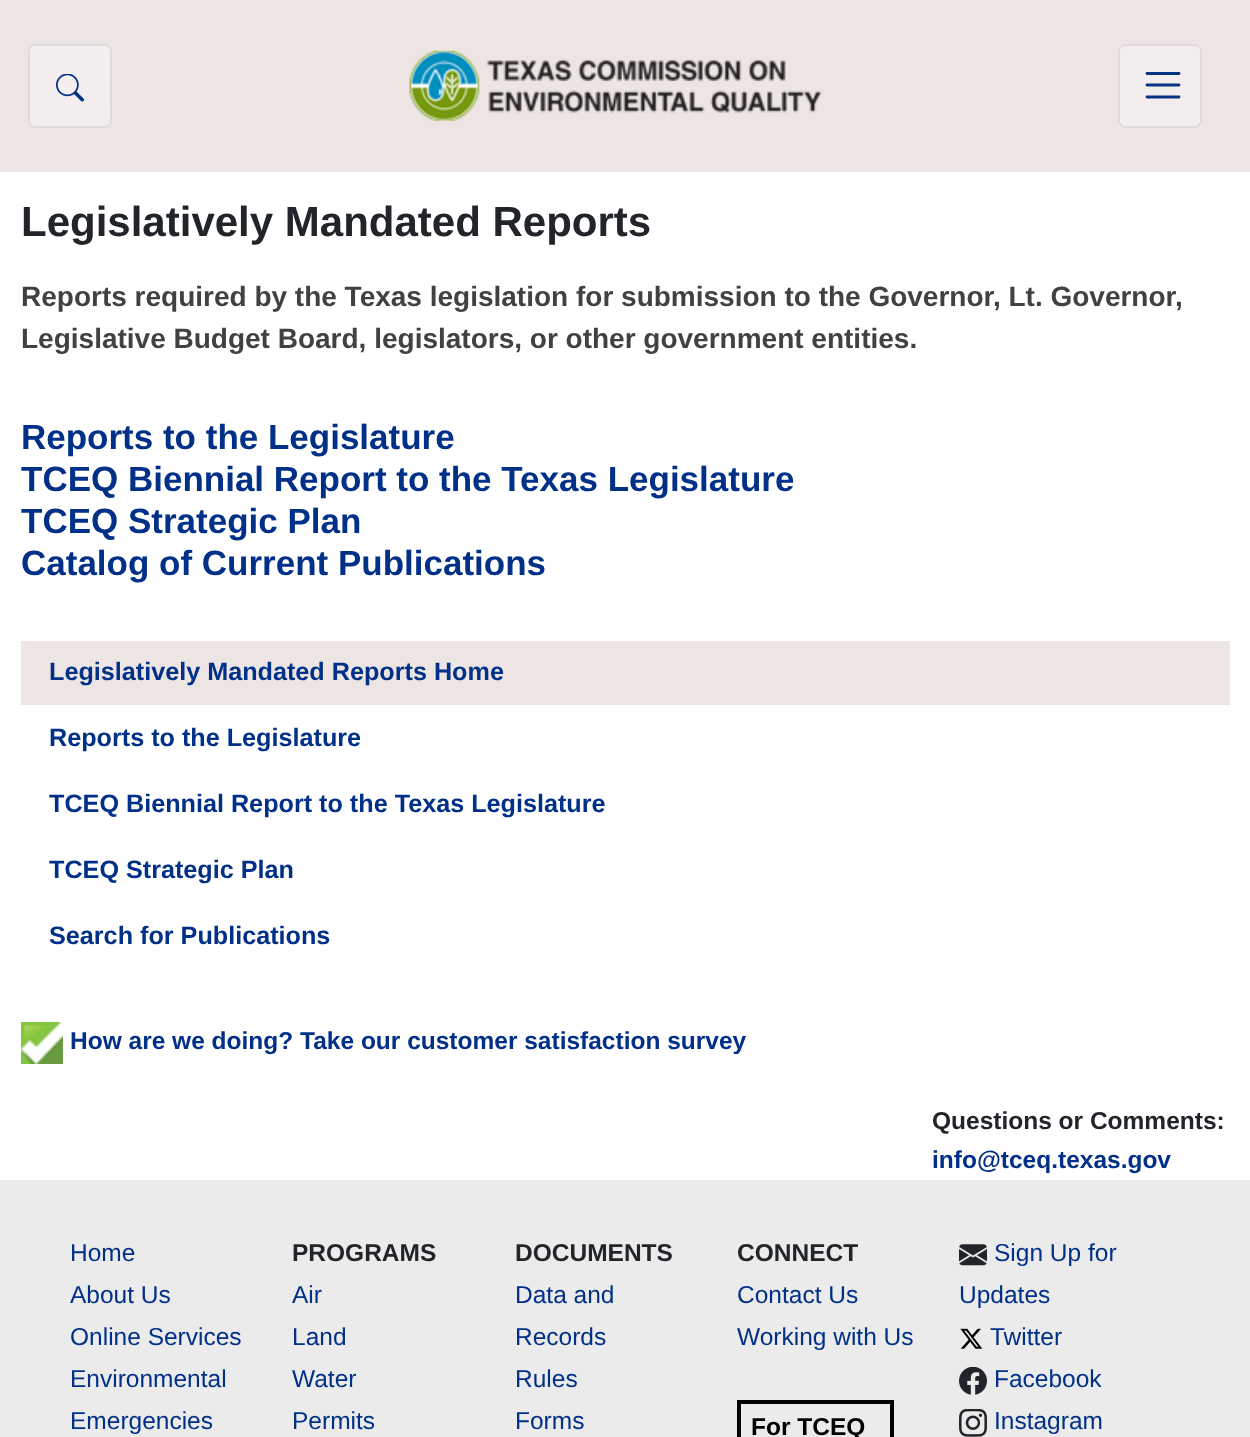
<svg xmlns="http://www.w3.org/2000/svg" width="1250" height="1437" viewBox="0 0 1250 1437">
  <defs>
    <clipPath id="clip1"><rect x="28" y="44" width="84" height="84" rx="7"/></clipPath>
    <linearGradient id="g1" gradientUnits="userSpaceOnUse" x1="70" y1="45" x2="70" y2="126"><stop offset="0" stop-color="rgb(255,255,255)" stop-opacity="0.15"/><stop offset="1" stop-color="rgb(255,255,255)" stop-opacity="0"/></linearGradient>
    <linearGradient id="g2" gradientUnits="userSpaceOnUse" x1="1160" y1="44" x2="1160" y2="128"><stop offset="0" stop-color="rgb(239,233,232)"/><stop offset="1" stop-color="rgb(236,229,228)"/></linearGradient>
  </defs>
  <rect width="100%" height="100%" fill="rgb(255,255,255)"/>
  <rect x="0" y="0" width="1250" height="172" fill="rgb(236,229,228)"/>
  <rect x="28" y="44" width="84" height="84" rx="7" fill="rgb(243,237,237)"/>
  <g clip-path="url(#clip1)">
    <rect x="28" y="46" width="84" height="68" fill="url(#g1)"/>
  </g>
  <rect x="29" y="45" width="82" height="82" rx="6" fill="none" stroke="rgb(223,218,221)" stroke-width="2"/>
  <image x="56" y="74" width="28" height="28" href="pic1.png"/>
  <image x="409" y="50" width="412" height="71" href="pic2.png"/>
  <rect x="1118" y="44" width="84" height="32" fill="url(#g2)"/>
  <rect x="1119" y="45" width="82" height="82" rx="6" fill="rgb(243,237,237)" stroke="rgb(223,218,221)" stroke-width="2"/>
  <path d="M1147 73.5H1179M1147 85H1179M1147 97H1179" fill="none" stroke="rgb(5,51,133)" stroke-width="2.9" stroke-linecap="round"/>
  <text x="21" y="236" font-family="Liberation Sans" font-size="42" font-weight="bold" fill="rgb(33,37,41)">Legislatively Mandated Reports</text>
  <g font-family="Liberation Sans" font-size="28" font-weight="bold" fill="rgb(65,65,65)">
    <text>
      <tspan x="21" y="306">Reports required by the Texas legislation for submission to the Governor, Lt. Governor,</tspan>
      <tspan x="21" y="348">Legislative Budget Board, legislators, or other government entities.</tspan>
    </text>
  </g>
  <g font-family="Liberation Sans" font-size="35" font-weight="bold" fill="rgb(0,48,135)">
    <text>
      <tspan x="21" y="449">Reports to the Legislature</tspan>
      <tspan x="21" y="491">TCEQ Biennial Report to the Texas Legislature</tspan>
      <tspan x="21" y="533">TCEQ Strategic Plan</tspan>
      <tspan x="21" y="575">Catalog of Current Publications</tspan>
    </text>
  </g>
  <rect x="21" y="641" width="1209" height="64" fill="rgb(236,229,228)"/>
  <g font-family="Liberation Sans" font-size="25.2" font-weight="bold" fill="rgb(0,48,135)">
    <text x="49" y="680">Legislatively Mandated Reports Home</text>
    <text x="49" y="746">Reports to the Legislature</text>
    <text x="49" y="812">TCEQ Biennial Report to the Texas Legislature</text>
    <text x="49" y="878">TCEQ Strategic Plan</text>
    <text x="49" y="944">Search for Publications</text>
  </g>
  <image x="21" y="1022" width="42" height="42" href="pic3.png"/>
  <text x="70" y="1049" font-family="Liberation Sans" font-size="24.5" font-weight="bold" fill="rgb(0,48,135)">How are we doing? Take our customer satisfaction survey</text>
  <text x="932" y="1129" font-family="Liberation Sans" font-size="24.5" font-weight="bold" fill="rgb(33,37,41)">Questions or Comments:</text>
  <text x="932" y="1168" font-family="Liberation Sans" font-size="24.5" font-weight="bold" fill="rgb(0,48,135)">info@tceq.texas.gov</text>
  <rect x="0" y="1180" width="1250" height="257" fill="rgb(235,235,235)"/>
  <g font-family="Liberation Sans" font-size="24.5" fill="rgb(0,48,135)">
    <text>
      <tspan x="70" y="1261">Home</tspan>
      <tspan x="70" y="1303">About Us</tspan>
      <tspan x="70" y="1345">Online Services</tspan>
      <tspan x="70" y="1387">Environmental</tspan>
      <tspan x="70" y="1429">Emergencies</tspan>
    </text>
  </g>
  <text x="292" y="1261" font-family="Liberation Sans" font-size="24.5" font-weight="bold" fill="rgb(33,37,41)">PROGRAMS</text>
  <g font-family="Liberation Sans" font-size="24.5" fill="rgb(0,48,135)">
    <text>
      <tspan x="292" y="1303">Air</tspan>
      <tspan x="292" y="1345">Land</tspan>
      <tspan x="292" y="1387">Water</tspan>
      <tspan x="292" y="1429">Permits</tspan>
    </text>
  </g>
  <text x="515" y="1261" font-family="Liberation Sans" font-size="24.5" font-weight="bold" fill="rgb(33,37,41)">DOCUMENTS</text>
  <g font-family="Liberation Sans" font-size="24.5" fill="rgb(0,48,135)">
    <text>
      <tspan x="515" y="1303">Data and</tspan>
      <tspan x="515" y="1345">Records</tspan>
      <tspan x="515" y="1387">Rules</tspan>
      <tspan x="515" y="1429">Forms</tspan>
    </text>
  </g>
  <text x="737" y="1261" font-family="Liberation Sans" font-size="24.5" font-weight="bold" fill="rgb(33,37,41)">CONNECT</text>
  <g font-family="Liberation Sans" font-size="24.5" fill="rgb(0,48,135)">
    <text>
      <tspan x="737" y="1303">Contact Us</tspan>
      <tspan x="737" y="1345">Working with Us</tspan>
    </text>
  </g>
  <rect x="739" y="1402" width="153" height="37" fill="none" stroke="rgb(0,0,0)" stroke-width="4"/>
  <text x="751" y="1435" font-family="Liberation Sans" font-size="24.5" font-weight="bold" fill="rgb(0,0,0)">For TCEQ</text>
  <image x="959" y="1244" width="28" height="22" href="pic4.png"/>
  <g font-family="Liberation Sans" font-size="24.5" fill="rgb(0,48,135)">
    <text x="994" y="1261">Sign Up for</text>
    <text x="959" y="1303">Updates</text>
  </g>
  <image x="960" y="1328" width="23" height="21" href="pic5.png"/>
  <text x="990" y="1345" font-family="Liberation Sans" font-size="24.5" fill="rgb(0,48,135)">Twitter</text>
  <image x="959" y="1367" width="28" height="28" href="pic6.png"/>
  <text x="994" y="1387" font-family="Liberation Sans" font-size="24.5" fill="rgb(0,48,135)">Facebook</text>
  <image x="959" y="1409" width="28" height="28" href="pic7.png"/>
  <text x="994" y="1429" font-family="Liberation Sans" font-size="24.5" fill="rgb(0,48,135)">Instagram</text>
</svg>
